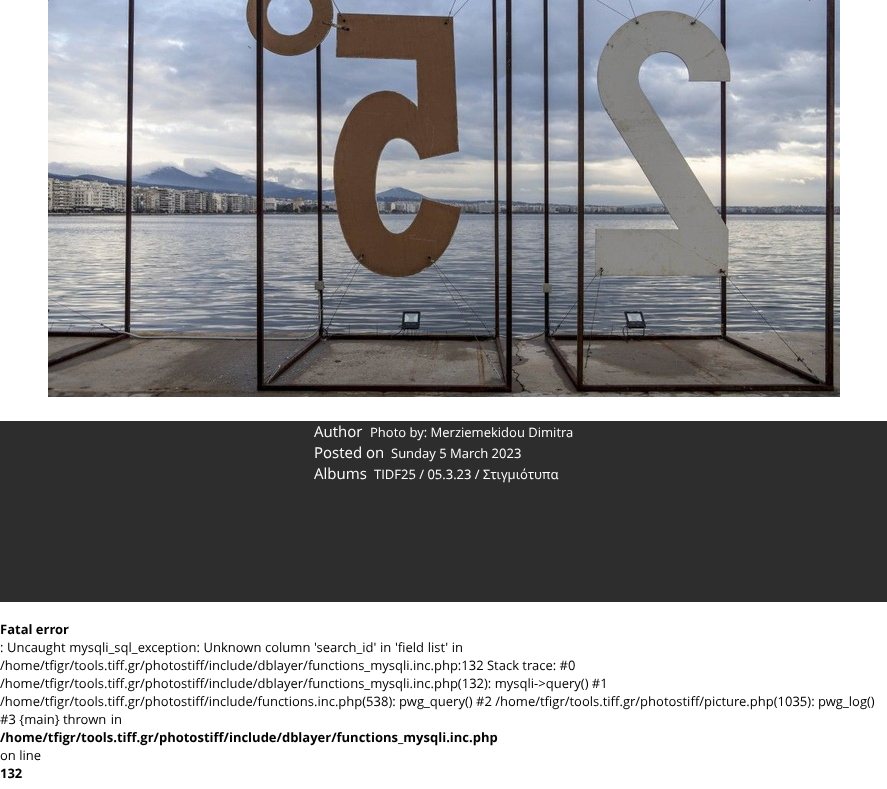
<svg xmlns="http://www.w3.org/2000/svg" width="887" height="789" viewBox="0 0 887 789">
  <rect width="100%" height="100%" fill="rgb(255,255,255)"/>
  <image x="48" y="0" width="792" height="397" href="pic1.png"/>
  <rect x="0" y="421" width="887" height="181" fill="rgb(45,45,45)"/>
  <text x="314" y="437" font-family="Open Sans" font-size="15" fill="rgb(255,255,255)">Author</text>
  <text x="370" y="437" font-family="Open Sans" font-size="13" fill="rgb(255,255,255)">Photo by: Merziemekidou Dimitra</text>
  <text x="314" y="458" font-family="Open Sans" font-size="15" fill="rgb(255,255,255)">Posted on</text>
  <text x="391" y="458" font-family="Open Sans" font-size="13" fill="rgb(255,255,255)">Sunday 5 March 2023</text>
  <text x="314" y="479" font-family="Open Sans" font-size="15" fill="rgb(255,255,255)">Albums</text>
  <text x="374" y="479" font-family="Open Sans" font-size="13" fill="rgb(255,255,255)">TIDF25 / 05.3.23 / Στιγμιότυπα</text>
  <text x="0" y="634" font-family="Open Sans" font-size="13" font-weight="bold" fill="rgb(0,0,0)">Fatal error</text>
  <g font-family="Open Sans" font-size="13" fill="rgb(0,0,0)">
    <text x="0" y="652">:</text>
    <text x="7" y="652" word-spacing="0.25">Uncaught mysqli_sql_exception: Unknown column 'search_id' in 'field list' in</text>
    <text>
      <tspan x="0" y="670">/home/tfigr/tools.tiff.gr/photostiff/include/dblayer/functions_mysqli.inc.php:132 Stack trace: #0</tspan>
      <tspan x="0" y="688">/home/tfigr/tools.tiff.gr/photostiff/include/dblayer/functions_mysqli.inc.php(132): mysqli-&gt;query() #1</tspan>
      <tspan x="0" y="706">/home/tfigr/tools.tiff.gr/photostiff/include/functions.inc.php(538): pwg_query() #2 /home/tfigr/tools.tiff.gr/photostiff/picture.php(1035): pwg_log()</tspan>
      <tspan x="0" y="724">#3 {main}</tspan>
    </text>
    <text x="63" y="724" word-spacing="1">thrown in</text>
  </g>
  <text x="0" y="742" font-family="Open Sans" font-size="13" font-weight="bold" fill="rgb(0,0,0)">/home/tfigr/tools.tiff.gr/photostiff/include/dblayer/functions_mysqli.inc.php</text>
  <text x="0" y="760" font-family="Open Sans" font-size="13" fill="rgb(0,0,0)">on line</text>
  <text x="0" y="778" font-family="Open Sans" font-size="13" font-weight="bold" fill="rgb(0,0,0)">132</text>
</svg>
